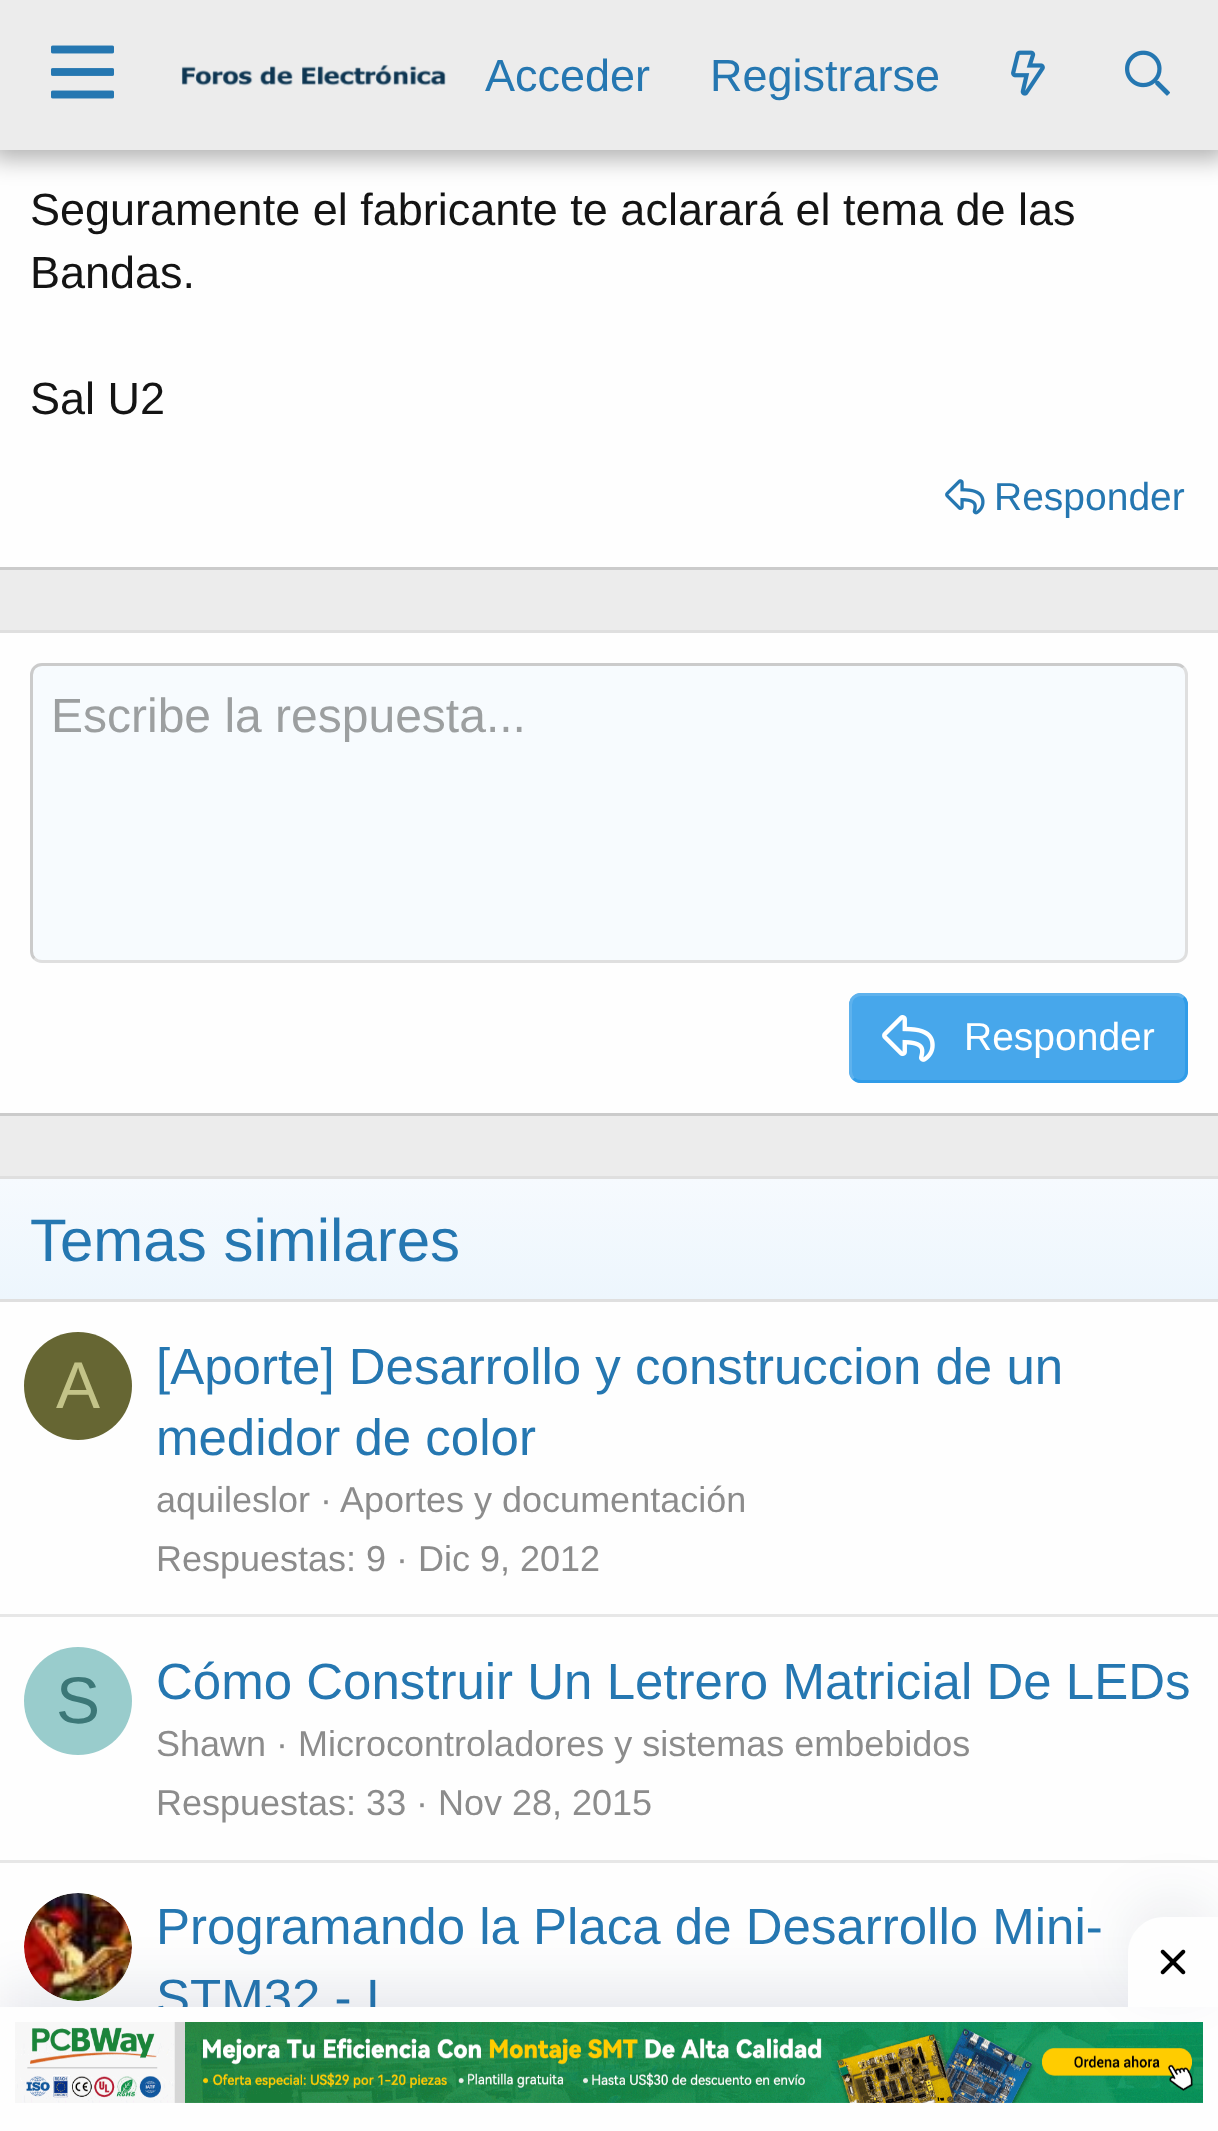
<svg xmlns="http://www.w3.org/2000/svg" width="1218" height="2131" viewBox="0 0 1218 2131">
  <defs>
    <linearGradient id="g1" gradientUnits="userSpaceOnUse" x1="609" y1="1299" x2="609" y2="1179"><stop offset="0" stop-color="rgb(237,246,253)"/><stop offset="1" stop-color="rgb(246,250,254)"/></linearGradient>
  </defs>
  <rect width="100%" height="100%" fill="rgb(236,236,236)"/>
  <rect x="0" y="150" width="1218" height="417" fill="rgb(254,254,254)"/>
  <rect x="-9" y="-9" width="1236" height="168" fill="rgba(0,0,0,0.3)" filter="blur(12px)"/>
  <rect x="0" y="0" width="1218" height="150" fill="rgb(236,236,236)"/>
  <image x="51" y="45" width="63" height="54" href="pic1.png"/>
  <image x="181" y="64" width="265" height="22" href="pic2.png"/>
  <g font-family="Liberation Sans" font-size="45" fill="rgb(37,119,177)">
    <text x="485" y="91">Acceder</text>
    <text x="710" y="91">Registrarse</text>
  </g>
  <image x="1011" y="50" width="34" height="46" href="pic3.png"/>
  <image x="1125" y="50" width="45" height="46" href="pic4.png"/>
  <rect x="0" y="567" width="1218" height="3" fill="rgb(203,203,203)"/>
  <g font-family="Liberation Sans" font-size="45" fill="rgb(20,20,20)">
    <text>
      <tspan x="30" y="225">Seguramente el fabricante te aclarará el tema de las</tspan>
      <tspan x="30" y="288">Bandas.</tspan>
    </text>
    <text x="30" y="414">Sal U2</text>
  </g>
  <image x="945" y="479" width="40" height="36" href="pic5.png"/>
  <text x="994" y="510" font-family="Liberation Sans" font-size="39" fill="rgb(37,119,177)">Responder</text>
  <rect x="0" y="633" width="1218" height="480" fill="rgb(254,254,254)"/>
  <rect x="0" y="630" width="1218" height="3" fill="rgb(223,223,223)"/>
  <rect x="0" y="1113" width="1218" height="3" fill="rgb(203,203,203)"/>
  <rect x="30" y="663" width="1158" height="300" rx="12" fill="rgb(247,251,254)"/>
  <path d="M1183.5 667.5C1185.5 669.5 1186.5 672 1186.5 675V951C1186.5 954 1185.5 956.5 1183.5 958.5C1181.5 960.5 1179 961.5 1176 961.5H42C39 961.5 36.5 960.5 34.5 958.5" fill="none" stroke="rgb(223,223,223)" stroke-width="3"/>
  <path d="M34.5 958.5C32.5 956.5 31.5 954 31.5 951V675C31.5 672 32.5 669.5 34.5 667.5C36.5 665.5 39 664.5 42 664.5H1176C1179 664.5 1181.5 665.5 1183.5 667.5" fill="none" stroke="rgb(203,203,203)" stroke-width="3"/>
  <text x="51" y="732" font-family="Liberation Sans" font-size="48" fill="rgb(156,159,160)">Escribe la respuesta...</text>
  <rect x="849" y="993" width="339" height="90" rx="12" fill="rgb(71,167,235)"/>
  <path d="M1183.5 997.5C1185.5 999.5 1186.5 1002 1186.5 1005V1071C1186.5 1074 1185.5 1076.5 1183.5 1078.5C1181.5 1080.5 1179 1081.5 1176 1081.5H861C858 1081.5 855.5 1080.5 853.5 1078.5" fill="none" stroke="rgb(48,156,232)" stroke-width="3"/>
  <path d="M853.5 1078.5C851.5 1076.5 850.5 1074 850.5 1071V1005C850.5 1002 851.5 999.5 853.5 997.5C855.5 995.5 858 994.5 861 994.5H1176C1179 994.5 1181.5 995.5 1183.5 997.5" fill="none" stroke="rgb(94,178,237)" stroke-width="3"/>
  <image x="882" y="1015" width="53" height="47" href="pic6.png"/>
  <text x="964" y="1050" font-family="Liberation Sans" font-size="39" fill="rgb(255,255,255)">Responder</text>
  <rect x="0" y="1302" width="1218" height="705" fill="rgb(254,254,254)"/>
  <rect x="0" y="1176" width="1218" height="3" fill="rgb(223,223,223)"/>
  <rect x="0" y="1179" width="1218" height="120" fill="url(#g1)"/>
  <rect x="0" y="1299" width="1218" height="3" fill="rgb(223,223,223)"/>
  <text x="30" y="1261" font-family="Liberation Sans" font-size="60" fill="rgb(37,119,177)">Temas similares</text>
  <circle cx="78" cy="1386" r="54" fill="rgb(102,102,51)"/>
  <text x="56" y="1408" font-family="Liberation Sans" font-size="66" fill="rgb(195,195,136)">A</text>
  <g font-family="Liberation Sans" font-size="51" fill="rgb(37,119,177)">
    <text>
      <tspan x="156" y="1384">[Aporte] Desarrollo y construccion de un</tspan>
      <tspan x="156" y="1455">medidor de color</tspan>
    </text>
  </g>
  <g font-family="Liberation Sans" font-size="36" fill="rgb(140,140,140)">
    <text x="156" y="1512">aquileslor ·</text>
    <text x="340" y="1512">Aportes y documentación</text>
    <text x="156" y="1571">Respuestas: 9</text>
    <text x="396" y="1571">· Dic 9, 2012</text>
  </g>
  <rect x="0" y="1614" width="1218" height="3" fill="rgb(231,231,231)"/>
  <circle cx="78" cy="1701" r="54" fill="rgb(153,204,204)"/>
  <text x="56" y="1723" font-family="Liberation Sans" font-size="66" fill="rgb(60,119,119)">S</text>
  <text x="156" y="1699" font-family="Liberation Sans" font-size="51" fill="rgb(37,119,177)">Cómo Construir Un Letrero Matricial De LEDs</text>
  <g font-family="Liberation Sans" font-size="36" fill="rgb(140,140,140)">
    <text>
      <tspan x="156" y="1756">Shawn · Microcontroladores y sistemas embebidos</tspan>
      <tspan x="156" y="1815">Respuestas: 33</tspan>
    </text>
    <text x="416" y="1815">· Nov 28, 2015</text>
  </g>
  <rect x="0" y="1860" width="1218" height="3" fill="rgb(231,231,231)"/>
  <image x="24" y="1893" width="108" height="108" href="pic7.png"/>
  <g font-family="Liberation Sans" font-size="51" fill="rgb(37,119,177)">
    <text>
      <tspan x="156" y="1944">Programando la Placa de Desarrollo Mini-</tspan>
      <tspan x="156" y="2015">STM32 - I</tspan>
    </text>
  </g>
  <rect x="0" y="1989" width="1218" height="126" fill="rgba(9,32,76,0.1)" filter="blur(27px)"/>
  <rect x="0" y="2007" width="1218" height="124" fill="rgb(254,254,254)"/>
  <rect x="1128" y="1899" width="90" height="90" rx="36" fill="rgba(9,32,76,0.08)" filter="blur(27px)"/>
  <path d="M1164 1917H1218V2007H1128V1953C1128 1933 1144 1917 1164 1917Z" fill="rgb(254,254,254)"/>
  <image x="1160" y="1949" width="26" height="26" href="pic8.png"/>
  <image x="15" y="2022" width="1188" height="81" href="pic9.png"/>
</svg>
